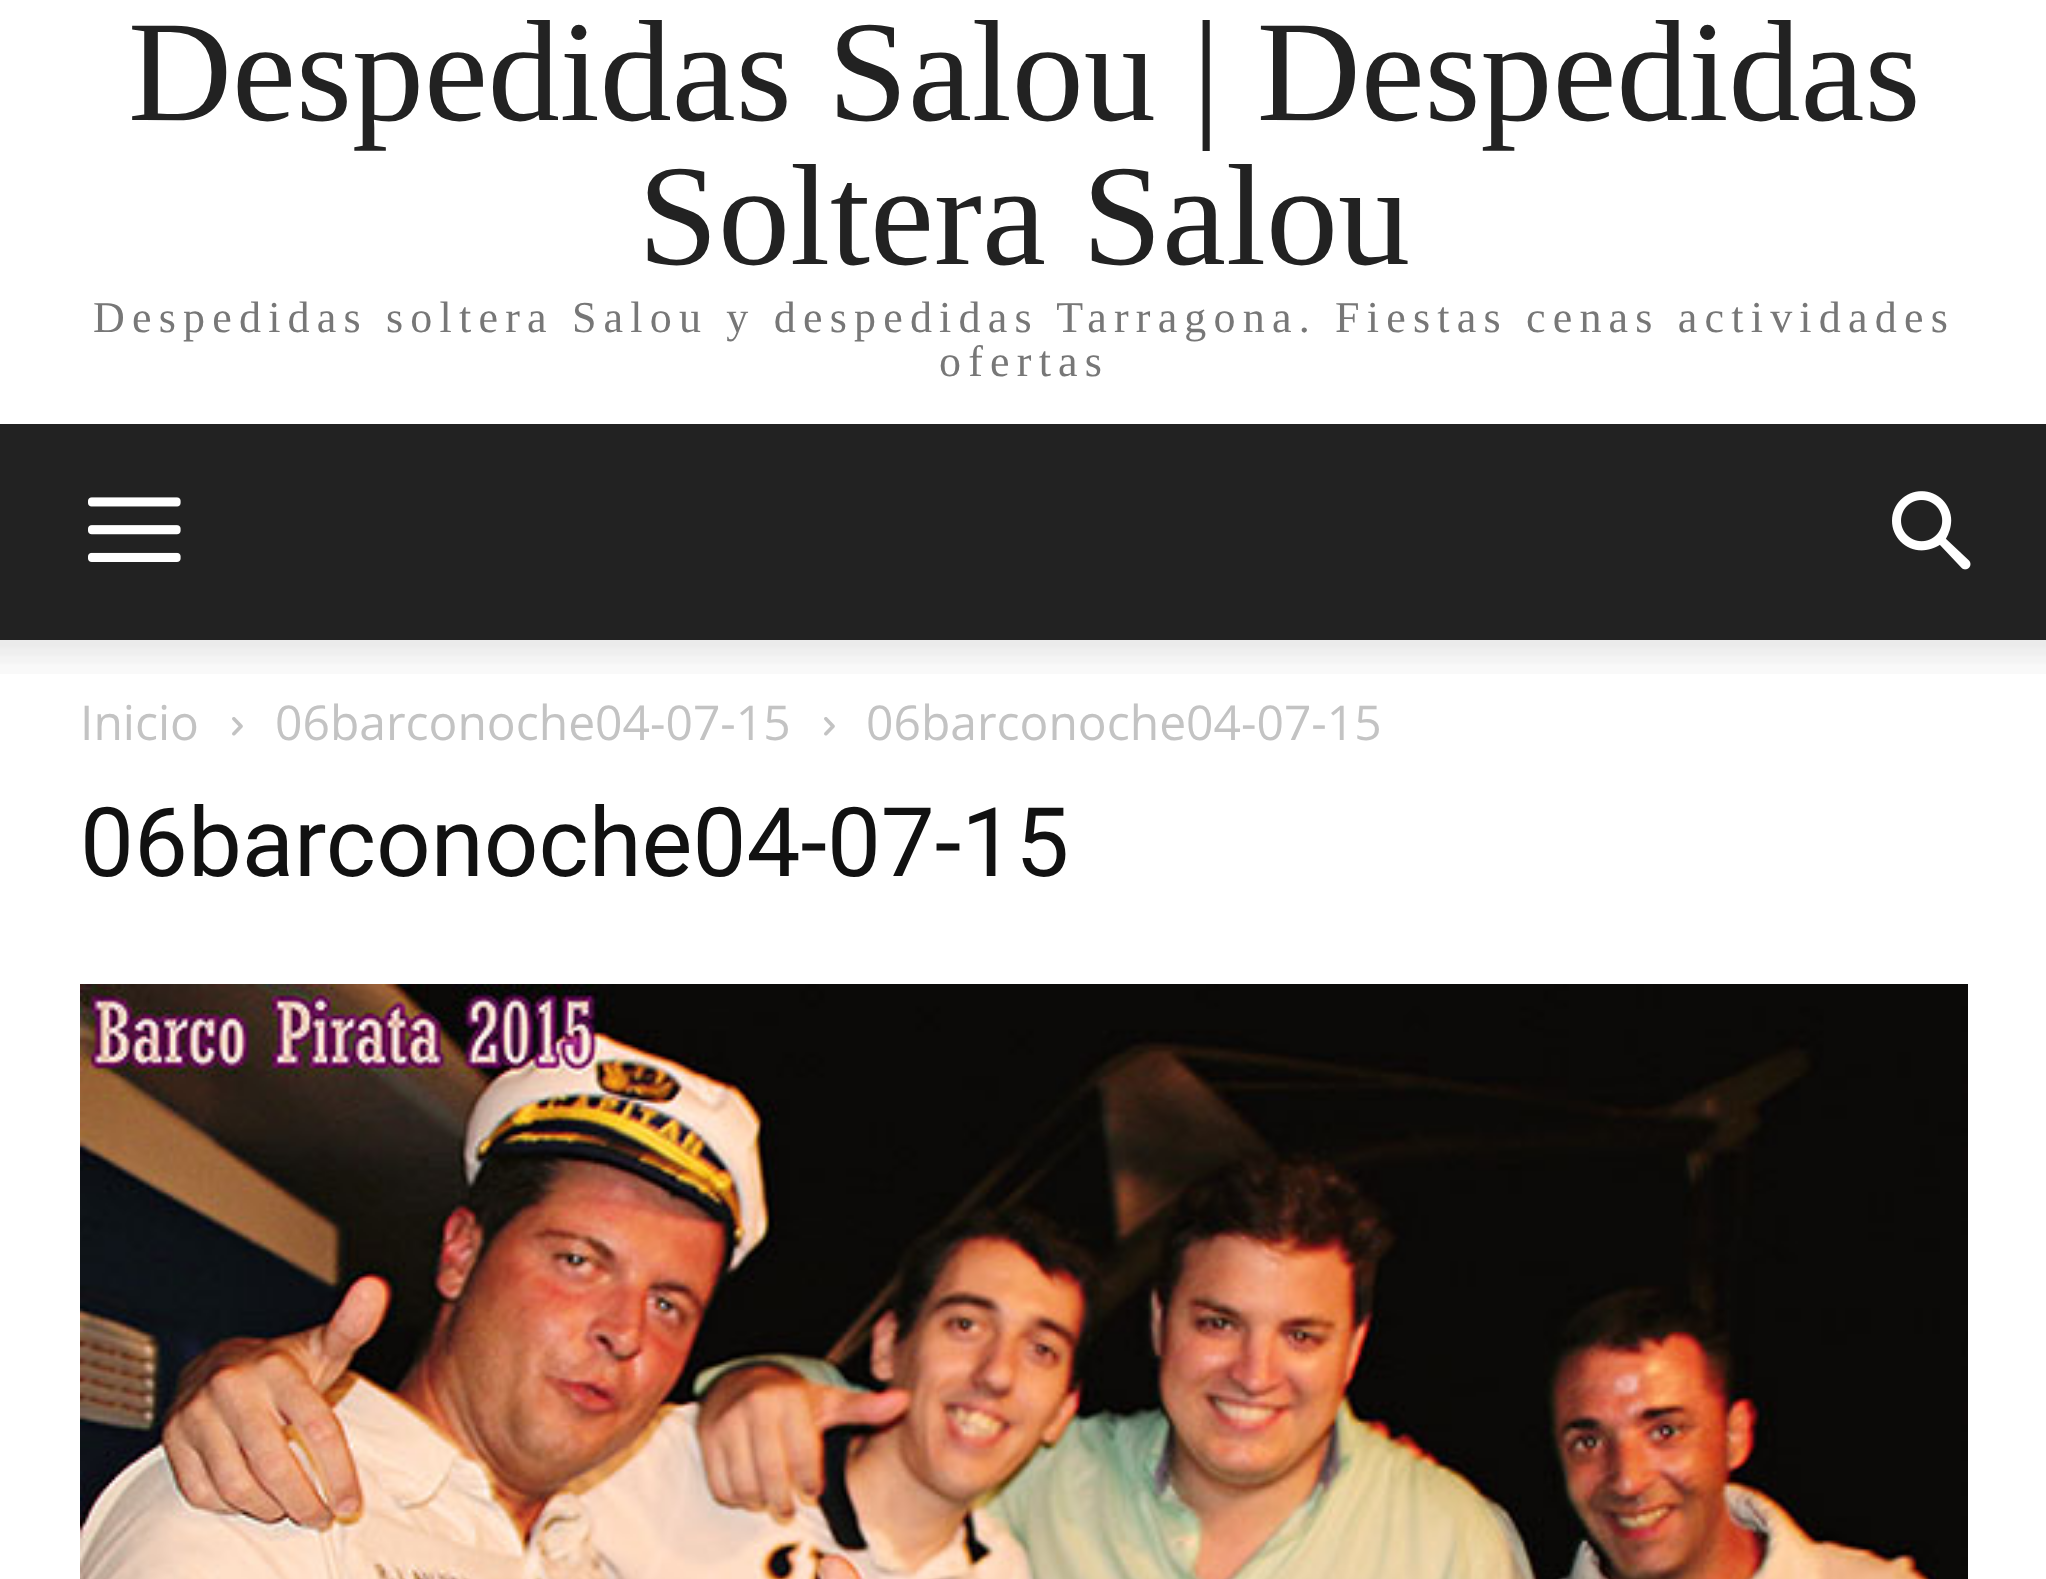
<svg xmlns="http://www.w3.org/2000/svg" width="2046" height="1579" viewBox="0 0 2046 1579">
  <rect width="100%" height="100%" fill="rgb(255,255,255)"/>
  <g font-family="Liberation Serif" font-size="144" fill="rgb(34,34,34)">
    <text x="128" y="120">Despedidas Salou | Despedidas</text>
    <text x="638" y="264">Soltera Salou</text>
  </g>
  <g font-family="Liberation Serif" font-size="44" letter-spacing="7.2" fill="rgb(119,119,119)">
    <text x="93" y="332">Despedidas soltera Salou y despedidas Tarragona. Fiestas cenas actividades</text>
    <text x="939" y="376">ofertas</text>
  </g>
  <rect x="0" y="424" width="2046" height="216" fill="rgb(34,34,34)"/>
  <image x="88" y="497" width="93" height="65" href="pic1.png"/>
  <image x="1892" y="491" width="79" height="79" href="pic2.png"/>
  <image x="0" y="640" width="2046" height="34" href="pic3.png"/>
  <text x="80" y="740" font-family="Open Sans" font-size="48" fill="rgb(195,195,195)">Inicio</text>
  <image x="232" y="717" width="11" height="19" href="pic4.png"/>
  <text x="275" y="740" font-family="Open Sans" font-size="48" fill="rgb(195,195,195)">06barconoche04-07-15</text>
  <image x="824" y="717" width="11" height="19" href="pic4.png"/>
  <text x="866" y="740" font-family="Open Sans" font-size="48" fill="rgb(195,195,195)">06barconoche04-07-15</text>
  <text x="80" y="876" font-family="Roboto" font-size="96" fill="rgb(17,17,17)">06barconoche04-07-15</text>
  <image x="80" y="984" width="1888" height="595" href="pic5.png"/>
</svg>
